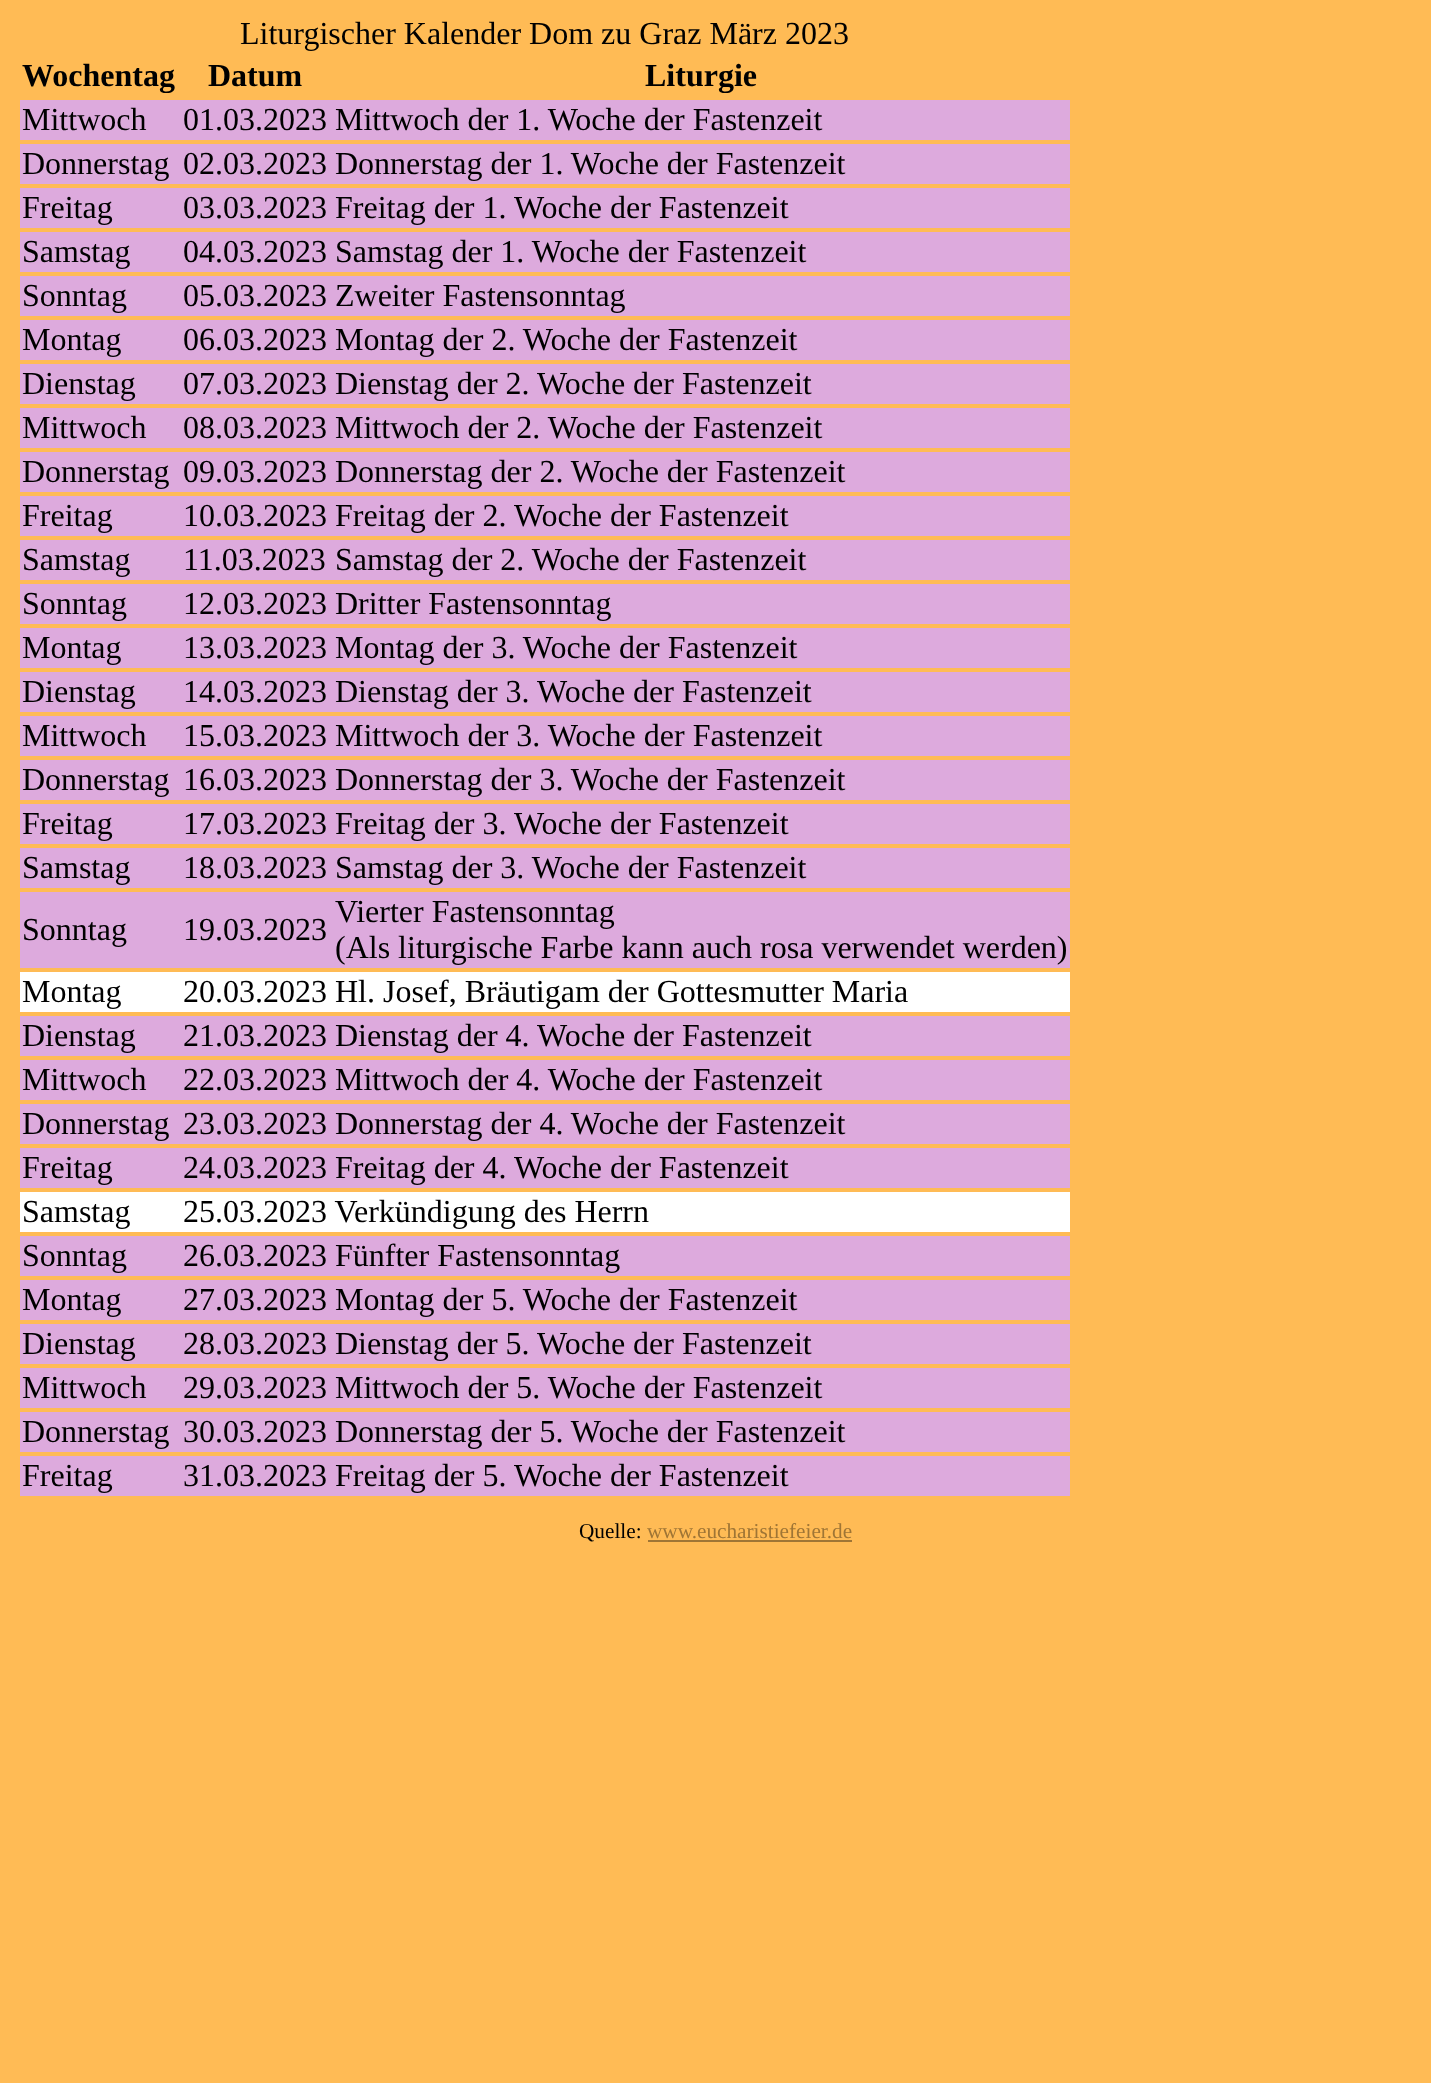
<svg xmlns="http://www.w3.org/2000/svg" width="1431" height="2083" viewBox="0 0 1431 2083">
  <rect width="100%" height="100%" fill="rgb(255,187,85)"/>
  <text x="240" y="44" font-family="Liberation Serif" font-size="32" fill="rgb(0,0,0)">Liturgischer Kalender Dom zu Graz März 2023</text>
  <g font-family="Liberation Serif" font-size="32" font-weight="bold" fill="rgb(0,0,0)">
    <text x="22" y="86">Wochentag</text>
    <text x="208" y="86">Datum</text>
    <text x="645" y="86">Liturgie</text>
  </g>
  <rect x="20" y="100" width="1050" height="40" fill="rgb(221,170,221)"/>
  <g font-family="Liberation Serif" font-size="32" fill="rgb(0,0,0)">
    <text x="22" y="130">Mittwoch</text>
    <text x="183" y="130">01.03.2023 Mittwoch der 1. Woche der Fastenzeit</text>
  </g>
  <rect x="20" y="144" width="1050" height="40" fill="rgb(221,170,221)"/>
  <g font-family="Liberation Serif" font-size="32" fill="rgb(0,0,0)">
    <text x="22" y="174">Donnerstag</text>
    <text x="183" y="174">02.03.2023 Donnerstag der 1. Woche der Fastenzeit</text>
  </g>
  <rect x="20" y="188" width="1050" height="40" fill="rgb(221,170,221)"/>
  <g font-family="Liberation Serif" font-size="32" fill="rgb(0,0,0)">
    <text x="22" y="218">Freitag</text>
    <text x="183" y="218">03.03.2023 Freitag der 1. Woche der Fastenzeit</text>
  </g>
  <rect x="20" y="232" width="1050" height="40" fill="rgb(221,170,221)"/>
  <g font-family="Liberation Serif" font-size="32" fill="rgb(0,0,0)">
    <text x="22" y="262">Samstag</text>
    <text x="183" y="262">04.03.2023 Samstag der 1. Woche der Fastenzeit</text>
  </g>
  <rect x="20" y="276" width="1050" height="40" fill="rgb(221,170,221)"/>
  <g font-family="Liberation Serif" font-size="32" fill="rgb(0,0,0)">
    <text x="22" y="306">Sonntag</text>
    <text x="183" y="306">05.03.2023 Zweiter Fastensonntag</text>
  </g>
  <rect x="20" y="320" width="1050" height="40" fill="rgb(221,170,221)"/>
  <g font-family="Liberation Serif" font-size="32" fill="rgb(0,0,0)">
    <text x="22" y="350">Montag</text>
    <text x="183" y="350">06.03.2023 Montag der 2. Woche der Fastenzeit</text>
  </g>
  <rect x="20" y="364" width="1050" height="40" fill="rgb(221,170,221)"/>
  <g font-family="Liberation Serif" font-size="32" fill="rgb(0,0,0)">
    <text x="22" y="394">Dienstag</text>
    <text x="183" y="394">07.03.2023 Dienstag der 2. Woche der Fastenzeit</text>
  </g>
  <rect x="20" y="408" width="1050" height="40" fill="rgb(221,170,221)"/>
  <g font-family="Liberation Serif" font-size="32" fill="rgb(0,0,0)">
    <text x="22" y="438">Mittwoch</text>
    <text x="183" y="438">08.03.2023 Mittwoch der 2. Woche der Fastenzeit</text>
  </g>
  <rect x="20" y="452" width="1050" height="40" fill="rgb(221,170,221)"/>
  <g font-family="Liberation Serif" font-size="32" fill="rgb(0,0,0)">
    <text x="22" y="482">Donnerstag</text>
    <text x="183" y="482">09.03.2023 Donnerstag der 2. Woche der Fastenzeit</text>
  </g>
  <rect x="20" y="496" width="1050" height="40" fill="rgb(221,170,221)"/>
  <g font-family="Liberation Serif" font-size="32" fill="rgb(0,0,0)">
    <text x="22" y="526">Freitag</text>
    <text x="183" y="526">10.03.2023 Freitag der 2. Woche der Fastenzeit</text>
  </g>
  <rect x="20" y="540" width="1050" height="40" fill="rgb(221,170,221)"/>
  <g font-family="Liberation Serif" font-size="32" fill="rgb(0,0,0)">
    <text x="22" y="570">Samstag</text>
    <text x="183" y="570">11.03.2023</text>
    <text x="335" y="570">Samstag der 2. Woche der Fastenzeit</text>
  </g>
  <rect x="20" y="584" width="1050" height="40" fill="rgb(221,170,221)"/>
  <g font-family="Liberation Serif" font-size="32" fill="rgb(0,0,0)">
    <text x="22" y="614">Sonntag</text>
    <text x="183" y="614">12.03.2023 Dritter Fastensonntag</text>
  </g>
  <rect x="20" y="628" width="1050" height="40" fill="rgb(221,170,221)"/>
  <g font-family="Liberation Serif" font-size="32" fill="rgb(0,0,0)">
    <text x="22" y="658">Montag</text>
    <text x="183" y="658">13.03.2023 Montag der 3. Woche der Fastenzeit</text>
  </g>
  <rect x="20" y="672" width="1050" height="40" fill="rgb(221,170,221)"/>
  <g font-family="Liberation Serif" font-size="32" fill="rgb(0,0,0)">
    <text x="22" y="702">Dienstag</text>
    <text x="183" y="702">14.03.2023 Dienstag der 3. Woche der Fastenzeit</text>
  </g>
  <rect x="20" y="716" width="1050" height="40" fill="rgb(221,170,221)"/>
  <g font-family="Liberation Serif" font-size="32" fill="rgb(0,0,0)">
    <text x="22" y="746">Mittwoch</text>
    <text x="183" y="746">15.03.2023 Mittwoch der 3. Woche der Fastenzeit</text>
  </g>
  <rect x="20" y="760" width="1050" height="40" fill="rgb(221,170,221)"/>
  <g font-family="Liberation Serif" font-size="32" fill="rgb(0,0,0)">
    <text x="22" y="790">Donnerstag</text>
    <text x="183" y="790">16.03.2023 Donnerstag der 3. Woche der Fastenzeit</text>
  </g>
  <rect x="20" y="804" width="1050" height="40" fill="rgb(221,170,221)"/>
  <g font-family="Liberation Serif" font-size="32" fill="rgb(0,0,0)">
    <text x="22" y="834">Freitag</text>
    <text x="183" y="834">17.03.2023 Freitag der 3. Woche der Fastenzeit</text>
  </g>
  <rect x="20" y="848" width="1050" height="40" fill="rgb(221,170,221)"/>
  <g font-family="Liberation Serif" font-size="32" fill="rgb(0,0,0)">
    <text x="22" y="878">Samstag</text>
    <text x="183" y="878">18.03.2023 Samstag der 3. Woche der Fastenzeit</text>
  </g>
  <rect x="20" y="892" width="1050" height="76" fill="rgb(221,170,221)"/>
  <g font-family="Liberation Serif" font-size="32" fill="rgb(0,0,0)">
    <text x="22" y="940">Sonntag</text>
    <text x="183" y="940">19.03.2023</text>
    <text>
      <tspan x="335" y="922">Vierter Fastensonntag</tspan>
      <tspan x="335" y="958">(Als liturgische Farbe kann auch rosa verwendet werden)</tspan>
    </text>
  </g>
  <rect x="20" y="972" width="1050" height="40" fill="rgb(255,255,255)"/>
  <g font-family="Liberation Serif" font-size="32" fill="rgb(0,0,0)">
    <text x="22" y="1002">Montag</text>
    <text x="183" y="1002">20.03.2023 Hl. Josef, Bräutigam der Gottesmutter Maria</text>
  </g>
  <rect x="20" y="1016" width="1050" height="40" fill="rgb(221,170,221)"/>
  <g font-family="Liberation Serif" font-size="32" fill="rgb(0,0,0)">
    <text x="22" y="1046">Dienstag</text>
    <text x="183" y="1046">21.03.2023 Dienstag der 4. Woche der Fastenzeit</text>
  </g>
  <rect x="20" y="1060" width="1050" height="40" fill="rgb(221,170,221)"/>
  <g font-family="Liberation Serif" font-size="32" fill="rgb(0,0,0)">
    <text x="22" y="1090">Mittwoch</text>
    <text x="183" y="1090">22.03.2023 Mittwoch der 4. Woche der Fastenzeit</text>
  </g>
  <rect x="20" y="1104" width="1050" height="40" fill="rgb(221,170,221)"/>
  <g font-family="Liberation Serif" font-size="32" fill="rgb(0,0,0)">
    <text x="22" y="1134">Donnerstag</text>
    <text x="183" y="1134">23.03.2023 Donnerstag der 4. Woche der Fastenzeit</text>
  </g>
  <rect x="20" y="1148" width="1050" height="40" fill="rgb(221,170,221)"/>
  <g font-family="Liberation Serif" font-size="32" fill="rgb(0,0,0)">
    <text x="22" y="1178">Freitag</text>
    <text x="183" y="1178">24.03.2023 Freitag der 4. Woche der Fastenzeit</text>
  </g>
  <rect x="20" y="1192" width="1050" height="40" fill="rgb(255,255,255)"/>
  <g font-family="Liberation Serif" font-size="32" fill="rgb(0,0,0)">
    <text x="22" y="1222">Samstag</text>
    <text x="183" y="1222">25.03.2023 Verkündigung des Herrn</text>
  </g>
  <rect x="20" y="1236" width="1050" height="40" fill="rgb(221,170,221)"/>
  <g font-family="Liberation Serif" font-size="32" fill="rgb(0,0,0)">
    <text x="22" y="1266">Sonntag</text>
    <text x="183" y="1266">26.03.2023 Fünfter Fastensonntag</text>
  </g>
  <rect x="20" y="1280" width="1050" height="40" fill="rgb(221,170,221)"/>
  <g font-family="Liberation Serif" font-size="32" fill="rgb(0,0,0)">
    <text x="22" y="1310">Montag</text>
    <text x="183" y="1310">27.03.2023 Montag der 5. Woche der Fastenzeit</text>
  </g>
  <rect x="20" y="1324" width="1050" height="40" fill="rgb(221,170,221)"/>
  <g font-family="Liberation Serif" font-size="32" fill="rgb(0,0,0)">
    <text x="22" y="1354">Dienstag</text>
    <text x="183" y="1354">28.03.2023 Dienstag der 5. Woche der Fastenzeit</text>
  </g>
  <rect x="20" y="1368" width="1050" height="40" fill="rgb(221,170,221)"/>
  <g font-family="Liberation Serif" font-size="32" fill="rgb(0,0,0)">
    <text x="22" y="1398">Mittwoch</text>
    <text x="183" y="1398">29.03.2023 Mittwoch der 5. Woche der Fastenzeit</text>
  </g>
  <rect x="20" y="1412" width="1050" height="40" fill="rgb(221,170,221)"/>
  <g font-family="Liberation Serif" font-size="32" fill="rgb(0,0,0)">
    <text x="22" y="1442">Donnerstag</text>
    <text x="183" y="1442">30.03.2023 Donnerstag der 5. Woche der Fastenzeit</text>
  </g>
  <rect x="20" y="1456" width="1050" height="40" fill="rgb(221,170,221)"/>
  <g font-family="Liberation Serif" font-size="32" fill="rgb(0,0,0)">
    <text x="22" y="1486">Freitag</text>
    <text x="183" y="1486">31.03.2023 Freitag der 5. Woche der Fastenzeit</text>
  </g>
  <text x="579" y="1538" font-family="Liberation Serif" font-size="21.25" fill="rgb(0,0,0)">Quelle:</text>
  <text x="647" y="1538" font-family="Liberation Serif" font-size="21.25" fill="rgb(159,117,53)">www.eucharistiefeier.de</text>
  <rect x="648" y="1540" width="204" height="2" fill="rgb(159,117,53)"/>
</svg>
